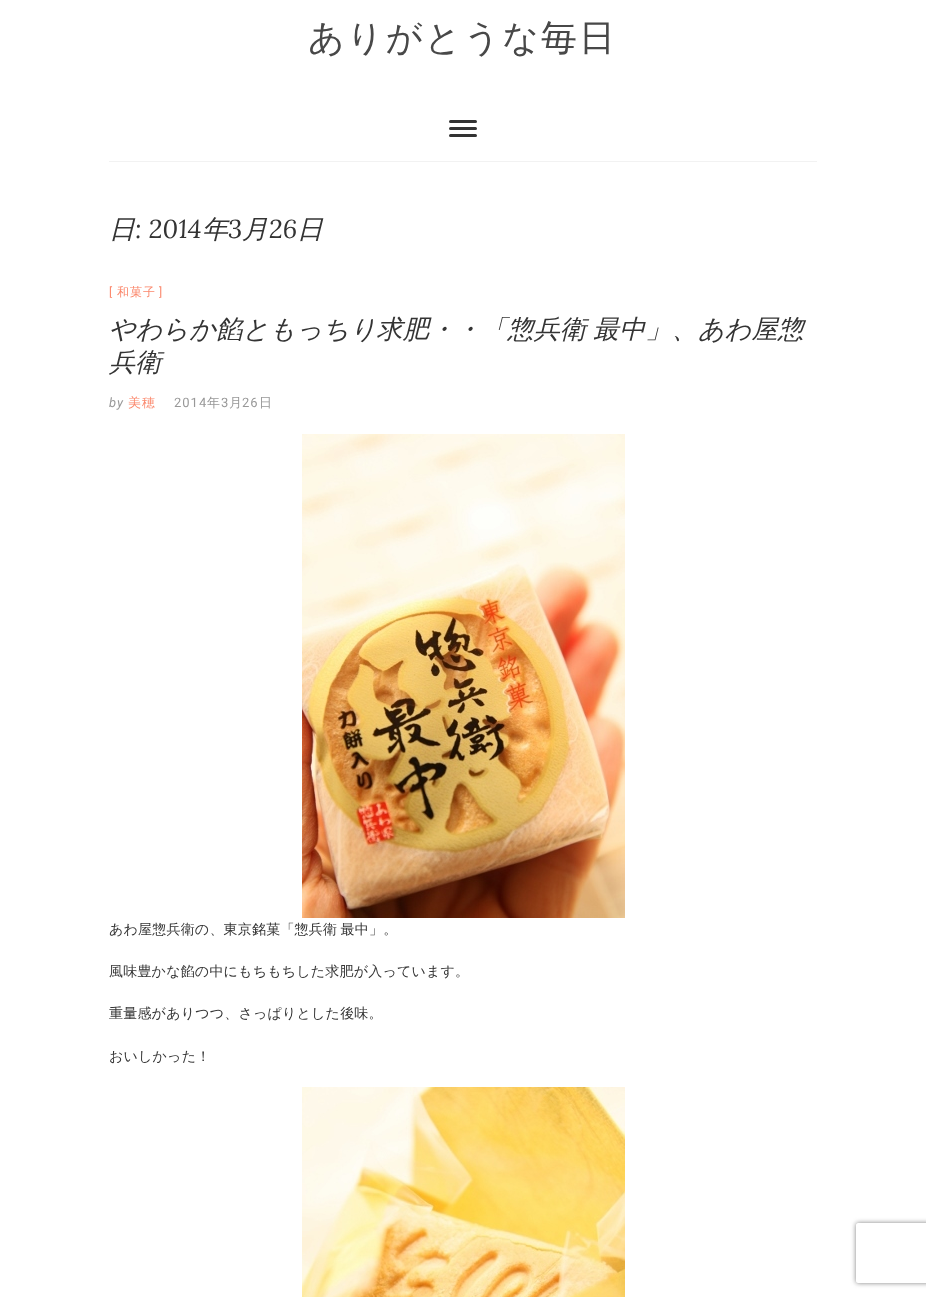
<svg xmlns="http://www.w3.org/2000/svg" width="926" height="1297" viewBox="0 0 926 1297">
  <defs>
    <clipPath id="clip1"><path d="M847 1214H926V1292H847ZM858 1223H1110C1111 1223 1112 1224 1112 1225V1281C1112 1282 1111 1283 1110 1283H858C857 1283 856 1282 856 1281V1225C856 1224 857 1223 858 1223Z" clip-rule="evenodd"/></clipPath>
  </defs>
  <rect width="100%" height="100%" fill="rgb(255,255,255)"/>
  <text x="308" y="50" font-family="WenQuanYi Zen Hei" font-size="36" font-weight="500" letter-spacing="2" fill="rgb(72,72,72)">ありがとうな毎日</text>
  <rect x="109" y="161" width="708" height="1" fill="rgb(242,242,242)"/>
  <rect x="449" y="120" width="28" height="3" rx="1.5" fill="rgb(51,51,51)"/>
  <rect x="449" y="127" width="28" height="3" rx="1.5" fill="rgb(51,51,51)"/>
  <rect x="449" y="134" width="28" height="3" rx="1.5" fill="rgb(51,51,51)"/>
  <text x="109" y="238" font-family="WenQuanYi Zen Hei" font-size="26" font-weight="500" font-style="italic" letter-spacing="0.2" fill="rgb(52,52,52)">日</text>
  <text x="135" y="238" font-family="Lora" font-size="26" font-style="italic" letter-spacing="0.2" fill="rgb(52,52,52)">: 2014</text>
  <text x="202" y="238" font-family="WenQuanYi Zen Hei" font-size="26" font-weight="500" font-style="italic" letter-spacing="0.2" fill="rgb(52,52,52)">年</text>
  <text x="228" y="238" font-family="Lora" font-size="26" font-style="italic" letter-spacing="0.2" fill="rgb(52,52,52)">3</text>
  <text x="242" y="238" font-family="WenQuanYi Zen Hei" font-size="26" font-weight="500" font-style="italic" letter-spacing="0.2" fill="rgb(52,52,52)">月</text>
  <text x="269" y="238" font-family="Lora" font-size="26" font-style="italic" letter-spacing="0.2" fill="rgb(52,52,52)">26</text>
  <text x="297" y="238" font-family="WenQuanYi Zen Hei" font-size="26" font-weight="500" font-style="italic" letter-spacing="0.2" fill="rgb(52,52,52)">日</text>
  <text x="109" y="296" font-family="Roboto" font-size="12" letter-spacing="1" fill="rgb(251,135,107)">[</text>
  <text x="117" y="296" font-family="WenQuanYi Zen Hei" font-size="12" font-weight="500" letter-spacing="1" fill="rgb(251,135,107)">和菓子</text>
  <text x="159" y="296" font-family="Roboto" font-size="12" letter-spacing="1" fill="rgb(251,135,107)">]</text>
  <g font-family="WenQuanYi Zen Hei" font-size="26" font-weight="500" font-style="italic" letter-spacing="0.2" fill="rgb(52,52,52)">
    <text>
      <tspan x="109" y="338" word-spacing="-1">やわらか餡ともっちり求肥・・「惣兵衛 最中」、あわ屋惣</tspan>
      <tspan x="109" y="371">兵衛</tspan>
    </text>
  </g>
  <text x="109" y="407" font-family="Roboto" font-size="13" font-style="italic" letter-spacing="1" fill="rgb(152,152,152)">by</text>
  <text x="128" y="407" font-family="WenQuanYi Zen Hei" font-size="13" font-weight="500" letter-spacing="1" fill="rgb(251,135,107)">美穂</text>
  <text x="174" y="407" font-family="Roboto" font-size="13" letter-spacing="1" fill="rgb(152,152,152)">2014</text>
  <text x="207" y="407" font-family="WenQuanYi Zen Hei" font-size="13" font-weight="500" letter-spacing="1" fill="rgb(152,152,152)">年</text>
  <text x="221" y="407" font-family="Roboto" font-size="13" letter-spacing="1" fill="rgb(152,152,152)">3</text>
  <text x="229" y="407" font-family="WenQuanYi Zen Hei" font-size="13" font-weight="500" letter-spacing="1" fill="rgb(152,152,152)">月</text>
  <text x="242" y="407" font-family="Roboto" font-size="13" letter-spacing="1" fill="rgb(152,152,152)">26</text>
  <text x="259" y="407" font-family="WenQuanYi Zen Hei" font-size="13" font-weight="500" letter-spacing="1" fill="rgb(152,152,152)">日</text>
  <image x="302" y="434" width="323" height="484" href="pic1.png"/>
  <g font-family="WenQuanYi Zen Hei" font-size="14" font-weight="500" letter-spacing="0.2" fill="rgb(52,52,52)">
    <text x="109" y="934" word-spacing="-1">あわ屋惣兵衛の、東京銘菓「惣兵衛 最中」。</text>
    <text x="109" y="976">風味豊かな餡の中にもちもちした求肥が入っています。</text>
    <text x="109" y="1018">重量感がありつつ、さっぱりとした後味。</text>
    <text x="109" y="1061">おいしかった！</text>
  </g>
  <image x="302" y="1087" width="323" height="210" href="pic2.png"/>
  <g clip-path="url(#clip1)">
    <rect x="856" y="1223" width="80" height="60" rx="2" fill="rgb(128,128,128)" filter="blur(2.5px)"/>
  </g>
</svg>
